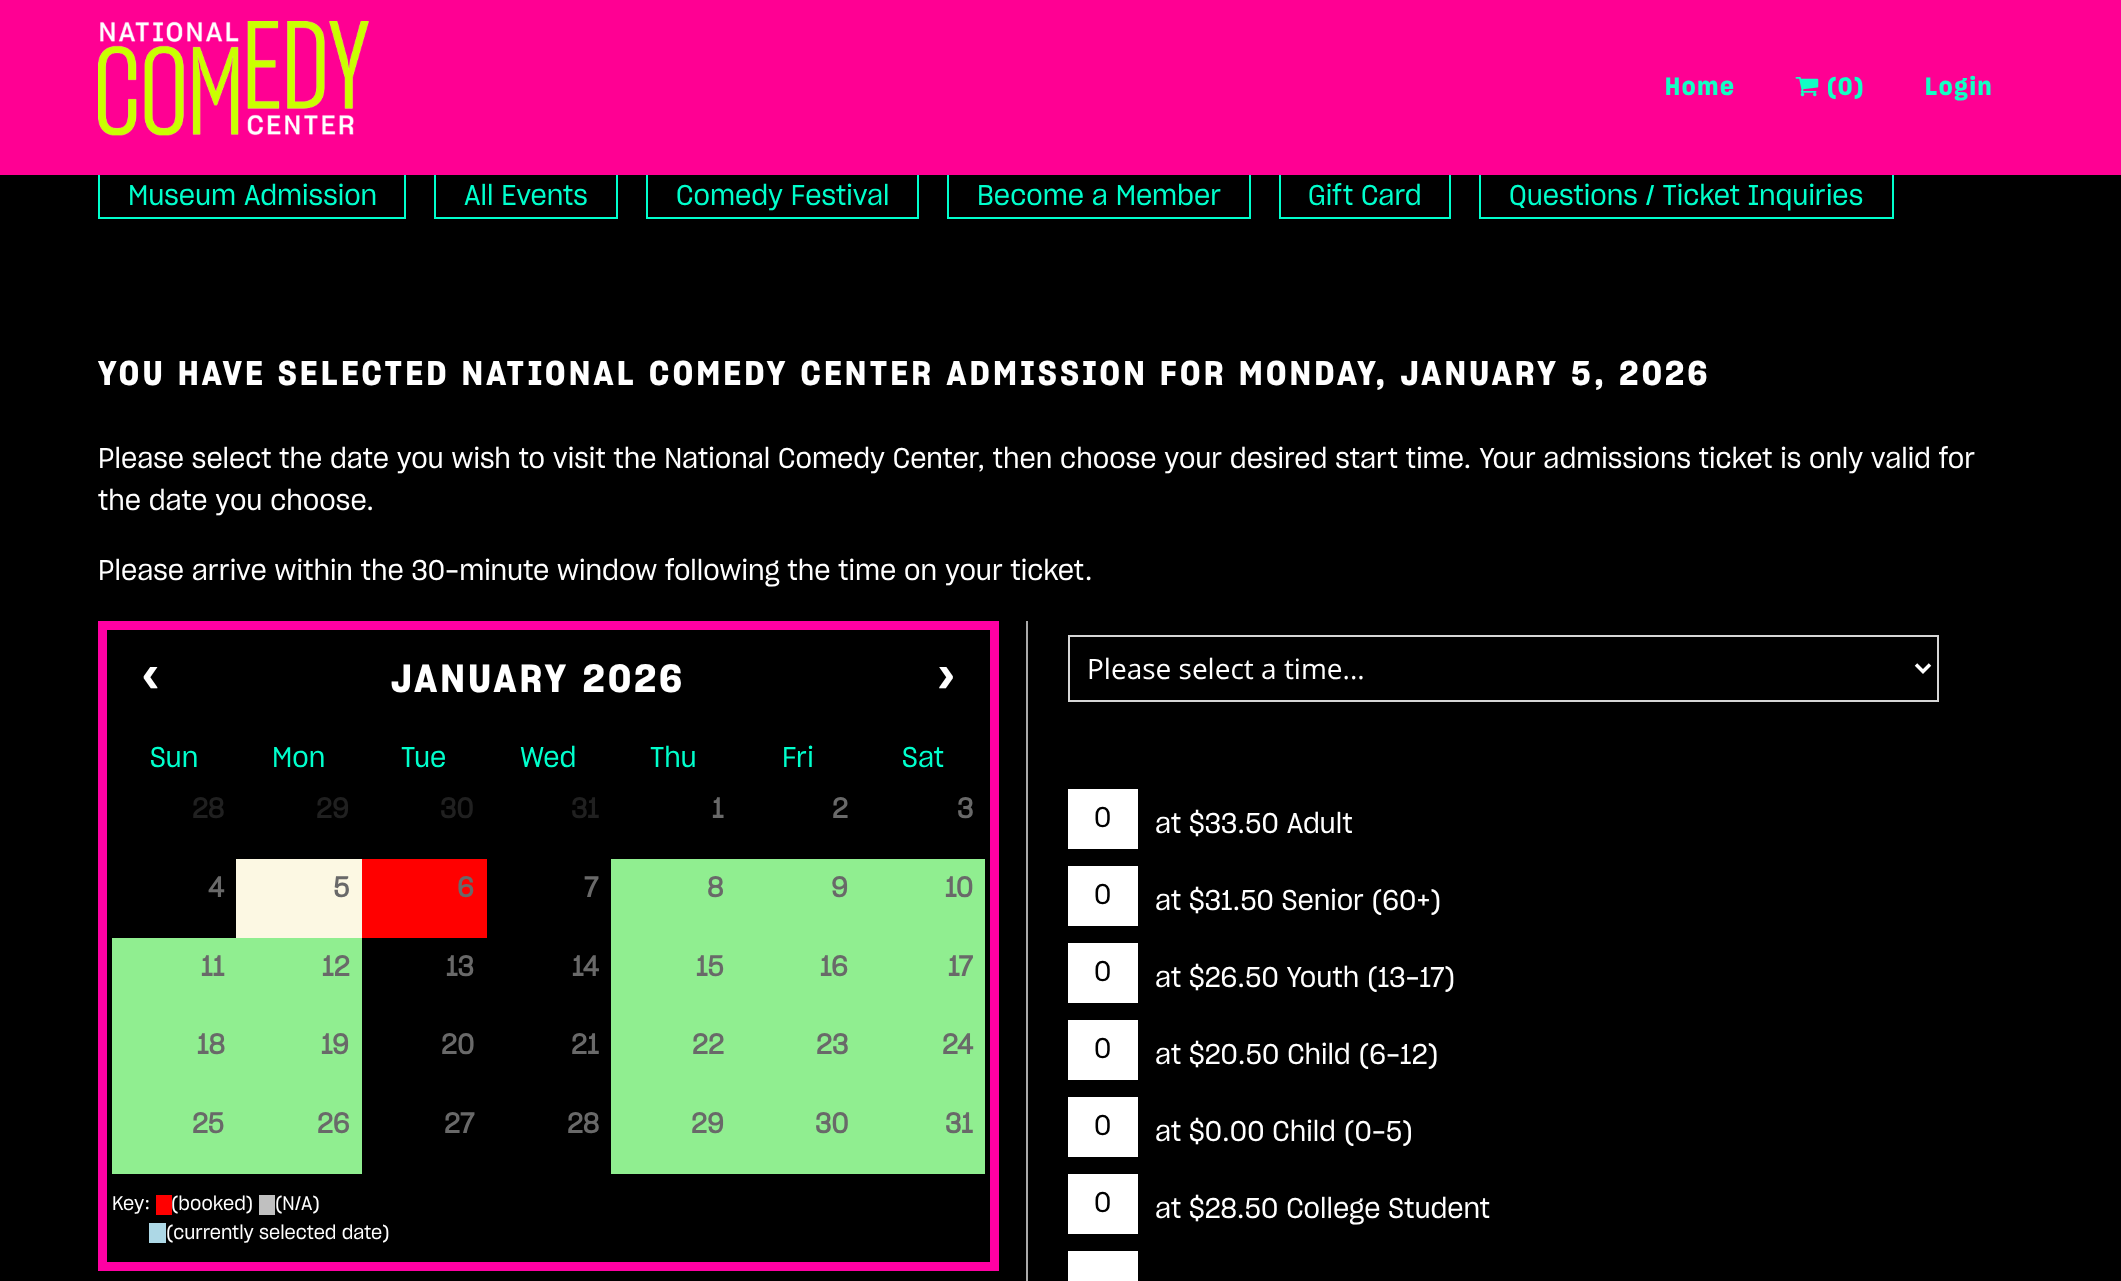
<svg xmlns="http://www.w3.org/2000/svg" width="2121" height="1281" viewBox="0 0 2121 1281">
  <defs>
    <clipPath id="clip1"><rect x="135" y="667" width="33" height="28"/></clipPath>
    <clipPath id="clip2"><rect x="929" y="667" width="34" height="28"/></clipPath>
  </defs>
  <rect width="100%" height="100%" fill="rgb(0,0,0)"/>
  <rect x="99" y="174" width="306" height="44" fill="none" stroke="rgb(0,255,204)" stroke-width="2"/>
  <rect x="435" y="174" width="182" height="44" fill="none" stroke="rgb(0,255,204)" stroke-width="2"/>
  <rect x="647" y="174" width="271" height="44" fill="none" stroke="rgb(0,255,204)" stroke-width="2"/>
  <rect x="948" y="174" width="302" height="44" fill="none" stroke="rgb(0,255,204)" stroke-width="2"/>
  <rect x="1280" y="174" width="170" height="44" fill="none" stroke="rgb(0,255,204)" stroke-width="2"/>
  <rect x="1480" y="174" width="413" height="44" fill="none" stroke="rgb(0,255,204)" stroke-width="2"/>
  <rect x="0" y="0" width="2121" height="175" fill="rgb(255,0,147)"/>
  <image x="98" y="21" width="271" height="115" href="pic1.png"/>
  <text x="1665" y="95" font-family="'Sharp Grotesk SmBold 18'" font-size="24.5" font-weight="bold" letter-spacing="1.75" fill="rgb(18,255,196)">Home</text>
  <image x="1795" y="77" width="24" height="20" href="pic2.png"/>
  <g font-family="'Sharp Grotesk SmBold 18'" font-size="24.5" font-weight="bold" letter-spacing="1.75" fill="rgb(18,255,196)">
    <text x="1827" y="95">(0)</text>
    <text x="1925" y="95">Login</text>
  </g>
  <g font-family="'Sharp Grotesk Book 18'" font-size="28" fill="rgb(0,255,204)">
    <text x="128" y="205">Museum Admission</text>
    <text x="464" y="205">All Events</text>
    <text x="676" y="205">Comedy Festival</text>
    <text x="977" y="205">Become a Member</text>
    <text x="1308" y="205">Gift Card</text>
    <text x="1509" y="205">Questions / Ticket Inquiries</text>
  </g>
  <g font-family="'Sharp Grotesk SmBold 18'" font-size="33.6" font-weight="bold" letter-spacing="3.5" fill="rgb(255,255,255)">
    <text x="98" y="385">YOU HAVE SELECTED NATIONAL COMEDY CENTER ADMISSION</text>
    <text x="1160" y="385">FOR MONDAY, JANUARY 5, 2026</text>
  </g>
  <g font-family="'Sharp Grotesk Book 18'" font-size="28" fill="rgb(255,255,255)">
    <text>
      <tspan x="98" y="468">Please select the date you wish to visit the National Comedy Center, then choose your desired start time. Your admissions ticket is only valid for</tspan>
      <tspan x="98" y="510">the date you choose.</tspan>
    </text>
    <text x="98" y="580">Please arrive within the 30-minute window following the time on your ticket.</text>
  </g>
  <rect x="102.5" y="625.5" width="892" height="641" fill="none" stroke="rgb(255,0,163)" stroke-width="9"/>
  <g clip-path="url(#clip1)">
    <text x="134" y="692" font-family="Liberation Mono" font-size="56" font-weight="bold" fill="rgb(255,255,255)">‹</text>
  </g>
  <text x="391" y="692" font-family="'Sharp Grotesk SmBold 18'" font-size="38.5" font-weight="bold" letter-spacing="3.5" fill="rgb(255,255,255)">JANUARY 2026</text>
  <g clip-path="url(#clip2)">
    <text x="929" y="692" font-family="Liberation Mono" font-size="56" font-weight="bold" fill="rgb(255,255,255)">›</text>
  </g>
  <g font-family="'Sharp Grotesk Book 18'" font-size="28" fill="rgb(0,255,204)">
    <text x="150" y="767">Sun</text>
    <text x="272" y="767">Mon</text>
    <text x="401" y="767">Tue</text>
    <text x="520" y="767">Wed</text>
    <text x="650" y="767">Thu</text>
    <text x="782" y="767">Fri</text>
    <text x="902" y="767">Sat</text>
  </g>
  <g font-family="'Sharp Grotesk Book 18'" font-size="28" font-weight="bold" fill="rgb(32,32,32)">
    <text x="192" y="818">28</text>
    <text x="316" y="818">29</text>
    <text x="440" y="818">30</text>
    <text x="571" y="818">31</text>
  </g>
  <g font-family="'Sharp Grotesk Book 18'" font-size="28" font-weight="bold" fill="rgb(105,105,105)">
    <text x="712" y="818">1</text>
    <text x="832" y="818">2</text>
    <text x="957" y="818">3</text>
  </g>
  <rect x="236" y="859" width="126" height="79" fill="rgb(252,248,227)"/>
  <rect x="362" y="859" width="125" height="79" fill="rgb(255,0,0)"/>
  <rect x="611" y="859" width="374" height="79" fill="rgb(144,238,144)"/>
  <g font-family="'Sharp Grotesk Book 18'" font-size="28" font-weight="bold" fill="rgb(105,105,105)">
    <text x="208" y="897">4</text>
    <text x="333" y="897">5</text>
    <text x="457" y="897">6</text>
    <text x="584" y="897">7</text>
    <text x="707" y="897">8</text>
    <text x="831" y="897">9</text>
    <text x="945" y="897">10</text>
  </g>
  <rect x="112" y="938" width="250" height="79" fill="rgb(144,238,144)"/>
  <rect x="611" y="938" width="374" height="79" fill="rgb(144,238,144)"/>
  <g font-family="'Sharp Grotesk Book 18'" font-size="28" font-weight="bold" fill="rgb(105,105,105)">
    <text x="201" y="976">11</text>
    <text x="322" y="976">12</text>
    <text x="446" y="976">13</text>
    <text x="572" y="976">14</text>
    <text x="696" y="976">15</text>
    <text x="820" y="976">16</text>
    <text x="948" y="976">17</text>
  </g>
  <rect x="112" y="1017" width="250" height="79" fill="rgb(144,238,144)"/>
  <rect x="611" y="1017" width="374" height="79" fill="rgb(144,238,144)"/>
  <g font-family="'Sharp Grotesk Book 18'" font-size="28" font-weight="bold" fill="rgb(105,105,105)">
    <text x="197" y="1054">18</text>
    <text x="321" y="1054">19</text>
    <text x="441" y="1054">20</text>
    <text x="571" y="1054">21</text>
    <text x="692" y="1054">22</text>
    <text x="816" y="1054">23</text>
    <text x="942" y="1054">24</text>
  </g>
  <rect x="112" y="1096" width="250" height="78" fill="rgb(144,238,144)"/>
  <rect x="611" y="1096" width="374" height="78" fill="rgb(144,238,144)"/>
  <g font-family="'Sharp Grotesk Book 18'" font-size="28" font-weight="bold" fill="rgb(105,105,105)">
    <text x="192" y="1133">25</text>
    <text x="317" y="1133">26</text>
    <text x="444" y="1133">27</text>
    <text x="567" y="1133">28</text>
    <text x="691" y="1133">29</text>
    <text x="815" y="1133">30</text>
    <text x="945" y="1133">31</text>
  </g>
  <g font-family="'Sharp Grotesk Book 18'" font-size="19.25" fill="rgb(255,255,255)">
    <text x="112" y="1210">Key:</text>
    <text x="171" y="1210">(booked)</text>
  </g>
  <rect x="156" y="1195" width="16" height="20" fill="rgb(255,0,0)"/>
  <text x="275" y="1210" font-family="'Sharp Grotesk Book 18'" font-size="19.25" fill="rgb(255,255,255)">(N/A)</text>
  <rect x="259" y="1195" width="16" height="20" fill="rgb(192,192,192)"/>
  <text x="166" y="1239" font-family="'Sharp Grotesk Book 18'" font-size="19.25" fill="rgb(255,255,255)">(currently selected date)</text>
  <rect x="149" y="1223" width="17" height="20" fill="rgb(173,216,230)"/>
  <rect x="1026" y="621" width="2" height="660" fill="rgb(170,170,170)"/>
  <rect x="1069" y="636" width="869" height="65" fill="none" stroke="rgb(214,214,214)" stroke-width="2"/>
  <path d="M1916 664.5L1923 671.5L1930 664.5" fill="none" stroke="rgb(255,255,255)" stroke-width="3.5"/>
  <text x="1087" y="679" font-family="Open Sans" font-size="28" fill="rgb(255,255,255)">Please select a time...</text>
  <rect x="1068" y="789" width="70" height="60" fill="rgb(255,255,255)"/>
  <text x="1094" y="827" font-family="'Sharp Grotesk Book 18'" font-size="28" fill="rgb(0,0,0)">0</text>
  <text x="1155" y="833" font-family="'Sharp Grotesk Book 18'" font-size="28" fill="rgb(255,255,255)">at $33.50 Adult</text>
  <rect x="1068" y="866" width="70" height="60" fill="rgb(255,255,255)"/>
  <text x="1094" y="904" font-family="'Sharp Grotesk Book 18'" font-size="28" fill="rgb(0,0,0)">0</text>
  <text x="1155" y="910" font-family="'Sharp Grotesk Book 18'" font-size="28" fill="rgb(255,255,255)">at $31.50 Senior (60+)</text>
  <rect x="1068" y="943" width="70" height="60" fill="rgb(255,255,255)"/>
  <text x="1094" y="981" font-family="'Sharp Grotesk Book 18'" font-size="28" fill="rgb(0,0,0)">0</text>
  <text x="1155" y="987" font-family="'Sharp Grotesk Book 18'" font-size="28" fill="rgb(255,255,255)">at $26.50 Youth (13-17)</text>
  <rect x="1068" y="1020" width="70" height="60" fill="rgb(255,255,255)"/>
  <text x="1094" y="1058" font-family="'Sharp Grotesk Book 18'" font-size="28" fill="rgb(0,0,0)">0</text>
  <text x="1155" y="1064" font-family="'Sharp Grotesk Book 18'" font-size="28" fill="rgb(255,255,255)">at $20.50 Child (6-12)</text>
  <rect x="1068" y="1097" width="70" height="60" fill="rgb(255,255,255)"/>
  <text x="1094" y="1135" font-family="'Sharp Grotesk Book 18'" font-size="28" fill="rgb(0,0,0)">0</text>
  <text x="1155" y="1141" font-family="'Sharp Grotesk Book 18'" font-size="28" fill="rgb(255,255,255)">at $0.00 Child (0-5)</text>
  <rect x="1068" y="1174" width="70" height="60" fill="rgb(255,255,255)"/>
  <text x="1094" y="1212" font-family="'Sharp Grotesk Book 18'" font-size="28" fill="rgb(0,0,0)">0</text>
  <text x="1155" y="1218" font-family="'Sharp Grotesk Book 18'" font-size="28" fill="rgb(255,255,255)">at $28.50 College Student</text>
  <rect x="1068" y="1251" width="70" height="30" fill="rgb(255,255,255)"/>
</svg>
